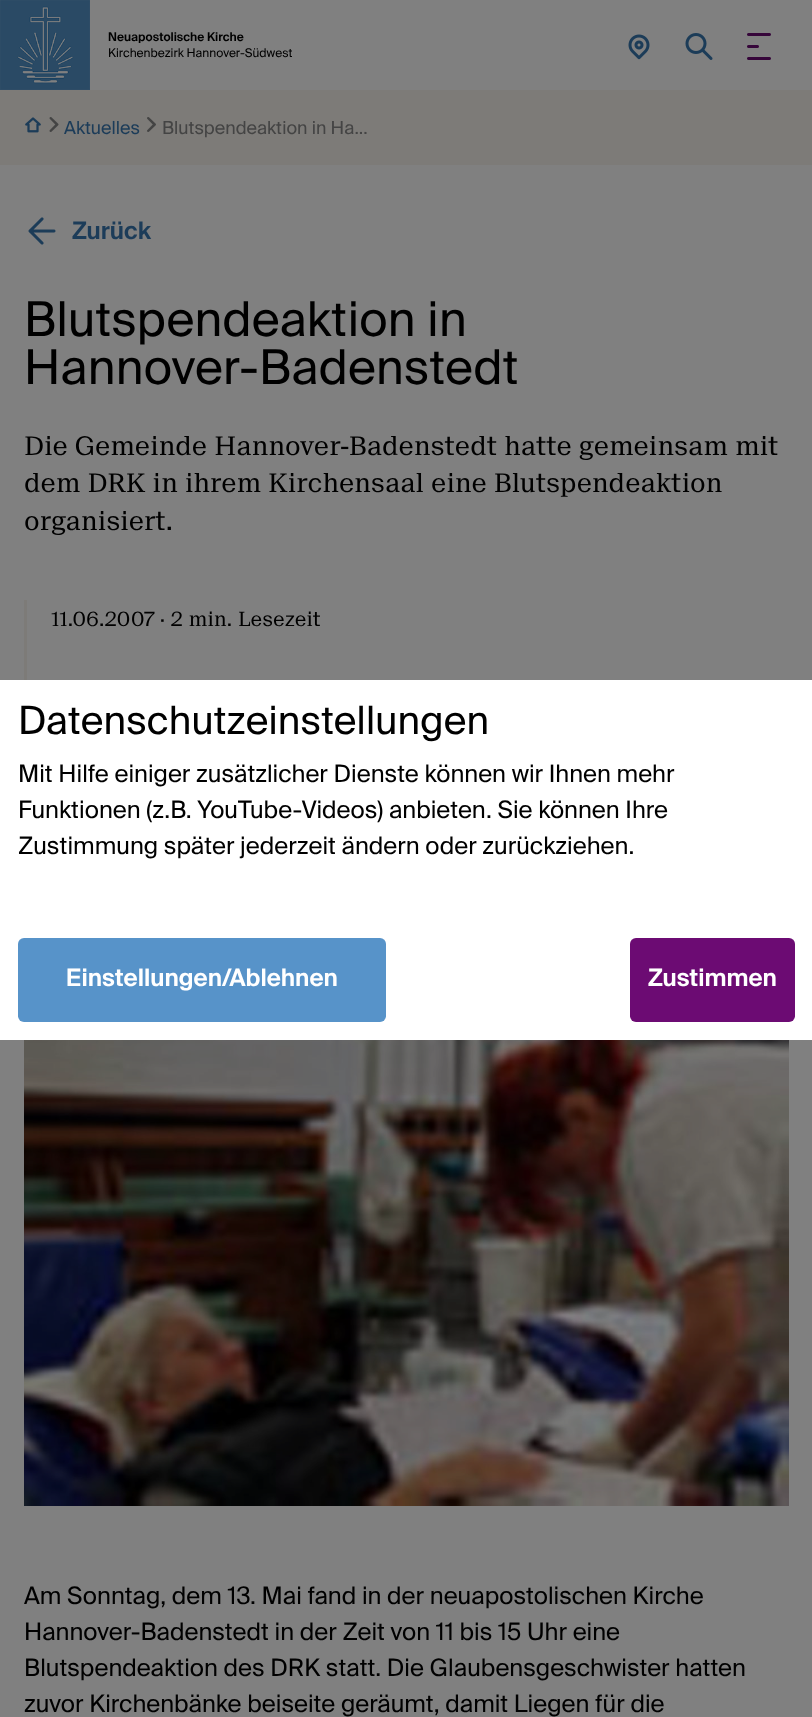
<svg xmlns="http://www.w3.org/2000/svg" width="812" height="1717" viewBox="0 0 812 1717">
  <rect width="100%" height="100%" fill="rgb(125,123,120)"/>
  <rect x="0" y="0" width="812" height="90" fill="rgb(128,128,128)"/>
  <image x="0" y="0" width="90" height="90" href="pic1.png"/>
  <text x="108" y="41" font-family="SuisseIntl" font-size="12" font-weight="600" fill="rgb(0,0,0)">Neuapostolische Kirche</text>
  <text x="108" y="57" font-family="SuisseIntl" font-size="12" fill="rgb(0,0,0)">Kirchenbezirk Hannover-Südwest</text>
  <image x="628" y="34" width="22" height="26" href="pic2.png"/>
  <image x="685" y="33" width="28" height="27" href="pic3.png"/>
  <image x="747" y="33" width="24" height="27" href="pic4.png"/>
  <image x="25" y="117" width="16" height="16" href="pic5.png"/>
  <image x="49" y="117" width="10" height="15" href="pic6.png"/>
  <text x="64" y="134" font-family="SuisseIntl" font-size="18" fill="rgb(28,60,89)">Aktuelles</text>
  <image x="147" y="117" width="9" height="15" href="pic7.png"/>
  <text x="162" y="134" font-family="SuisseIntl" font-size="18" fill="rgb(68,68,68)">Blutspendeaktion in Ha...</text>
  <rect x="0" y="165" width="812" height="1552" fill="rgb(128,128,128)"/>
  <image x="28" y="217" width="28" height="28" href="pic8.png"/>
  <text x="72" y="239" font-family="SuisseIntl" font-size="24" font-weight="600" fill="rgb(28,60,89)">Zurück</text>
  <g font-family="SuisseIntl" font-size="48" letter-spacing="0.25" fill="rgb(0,0,0)">
    <text>
      <tspan x="24" y="336">Blutspendeaktion in</tspan>
      <tspan x="24" y="384">Hannover-Badenstedt</tspan>
    </text>
  </g>
  <g font-family="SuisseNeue" font-size="25.5" fill="rgb(0,0,0)">
    <text>
      <tspan x="24" y="455">Die Gemeinde Hannover-Badenstedt hatte gemeinsam mit</tspan>
      <tspan x="24" y="492">dem DRK in ihrem Kirchensaal eine Blutspendeaktion</tspan>
      <tspan x="24" y="530">organisiert.</tspan>
    </text>
  </g>
  <rect x="24" y="600" width="3" height="80" fill="rgb(125,123,120)"/>
  <text x="51" y="626" font-family="SuisseNeue" font-size="19.5" fill="rgb(0,0,0)">11.06.2007 · 2 min. Lesezeit</text>
  <image x="24" y="1040" width="765" height="466" href="pic9.png"/>
  <g font-family="SuisseIntl" font-size="24" fill="rgb(0,0,0)">
    <text>
      <tspan x="24" y="1604">Am Sonntag, dem 13. Mai fand in der neuapostolischen Kirche</tspan>
      <tspan x="24" y="1640">Hannover-Badenstedt in der Zeit von 11 bis 15 Uhr eine</tspan>
      <tspan x="24" y="1676">Blutspendeaktion des DRK statt. Die Glaubensgeschwister hatten</tspan>
      <tspan x="24" y="1712">zuvor Kirchenbänke beiseite geräumt, damit Liegen für die</tspan>
    </text>
  </g>
  <rect x="0" y="680" width="812" height="360" fill="rgb(255,255,255)"/>
  <text x="18" y="734" font-family="SuisseIntl" font-size="39" letter-spacing="0.15" fill="rgb(0,0,0)">Datenschutzeinstellungen</text>
  <g font-family="SuisseIntl" font-size="24" fill="rgb(0,0,0)">
    <text>
      <tspan x="18" y="782">Mit Hilfe einiger zusätzlicher Dienste können wir Ihnen mehr</tspan>
      <tspan x="18" y="818">Funktionen (z.B. YouTube-Videos) anbieten. Sie können Ihre</tspan>
      <tspan x="18" y="854">Zustimmung später jederzeit ändern oder zurückziehen.</tspan>
    </text>
  </g>
  <rect x="18" y="938" width="368" height="84" rx="6" fill="rgb(87,147,201)"/>
  <text x="66" y="986" font-family="SuisseIntl" font-size="24" font-weight="600" fill="rgb(255,255,255)">Einstellungen/Ablehnen</text>
  <rect x="630" y="938" width="165" height="84" rx="6" fill="rgb(108,11,115)"/>
  <text x="648" y="986" font-family="SuisseIntl" font-size="24" font-weight="600" fill="rgb(255,255,255)">Zustimmen</text>
</svg>
